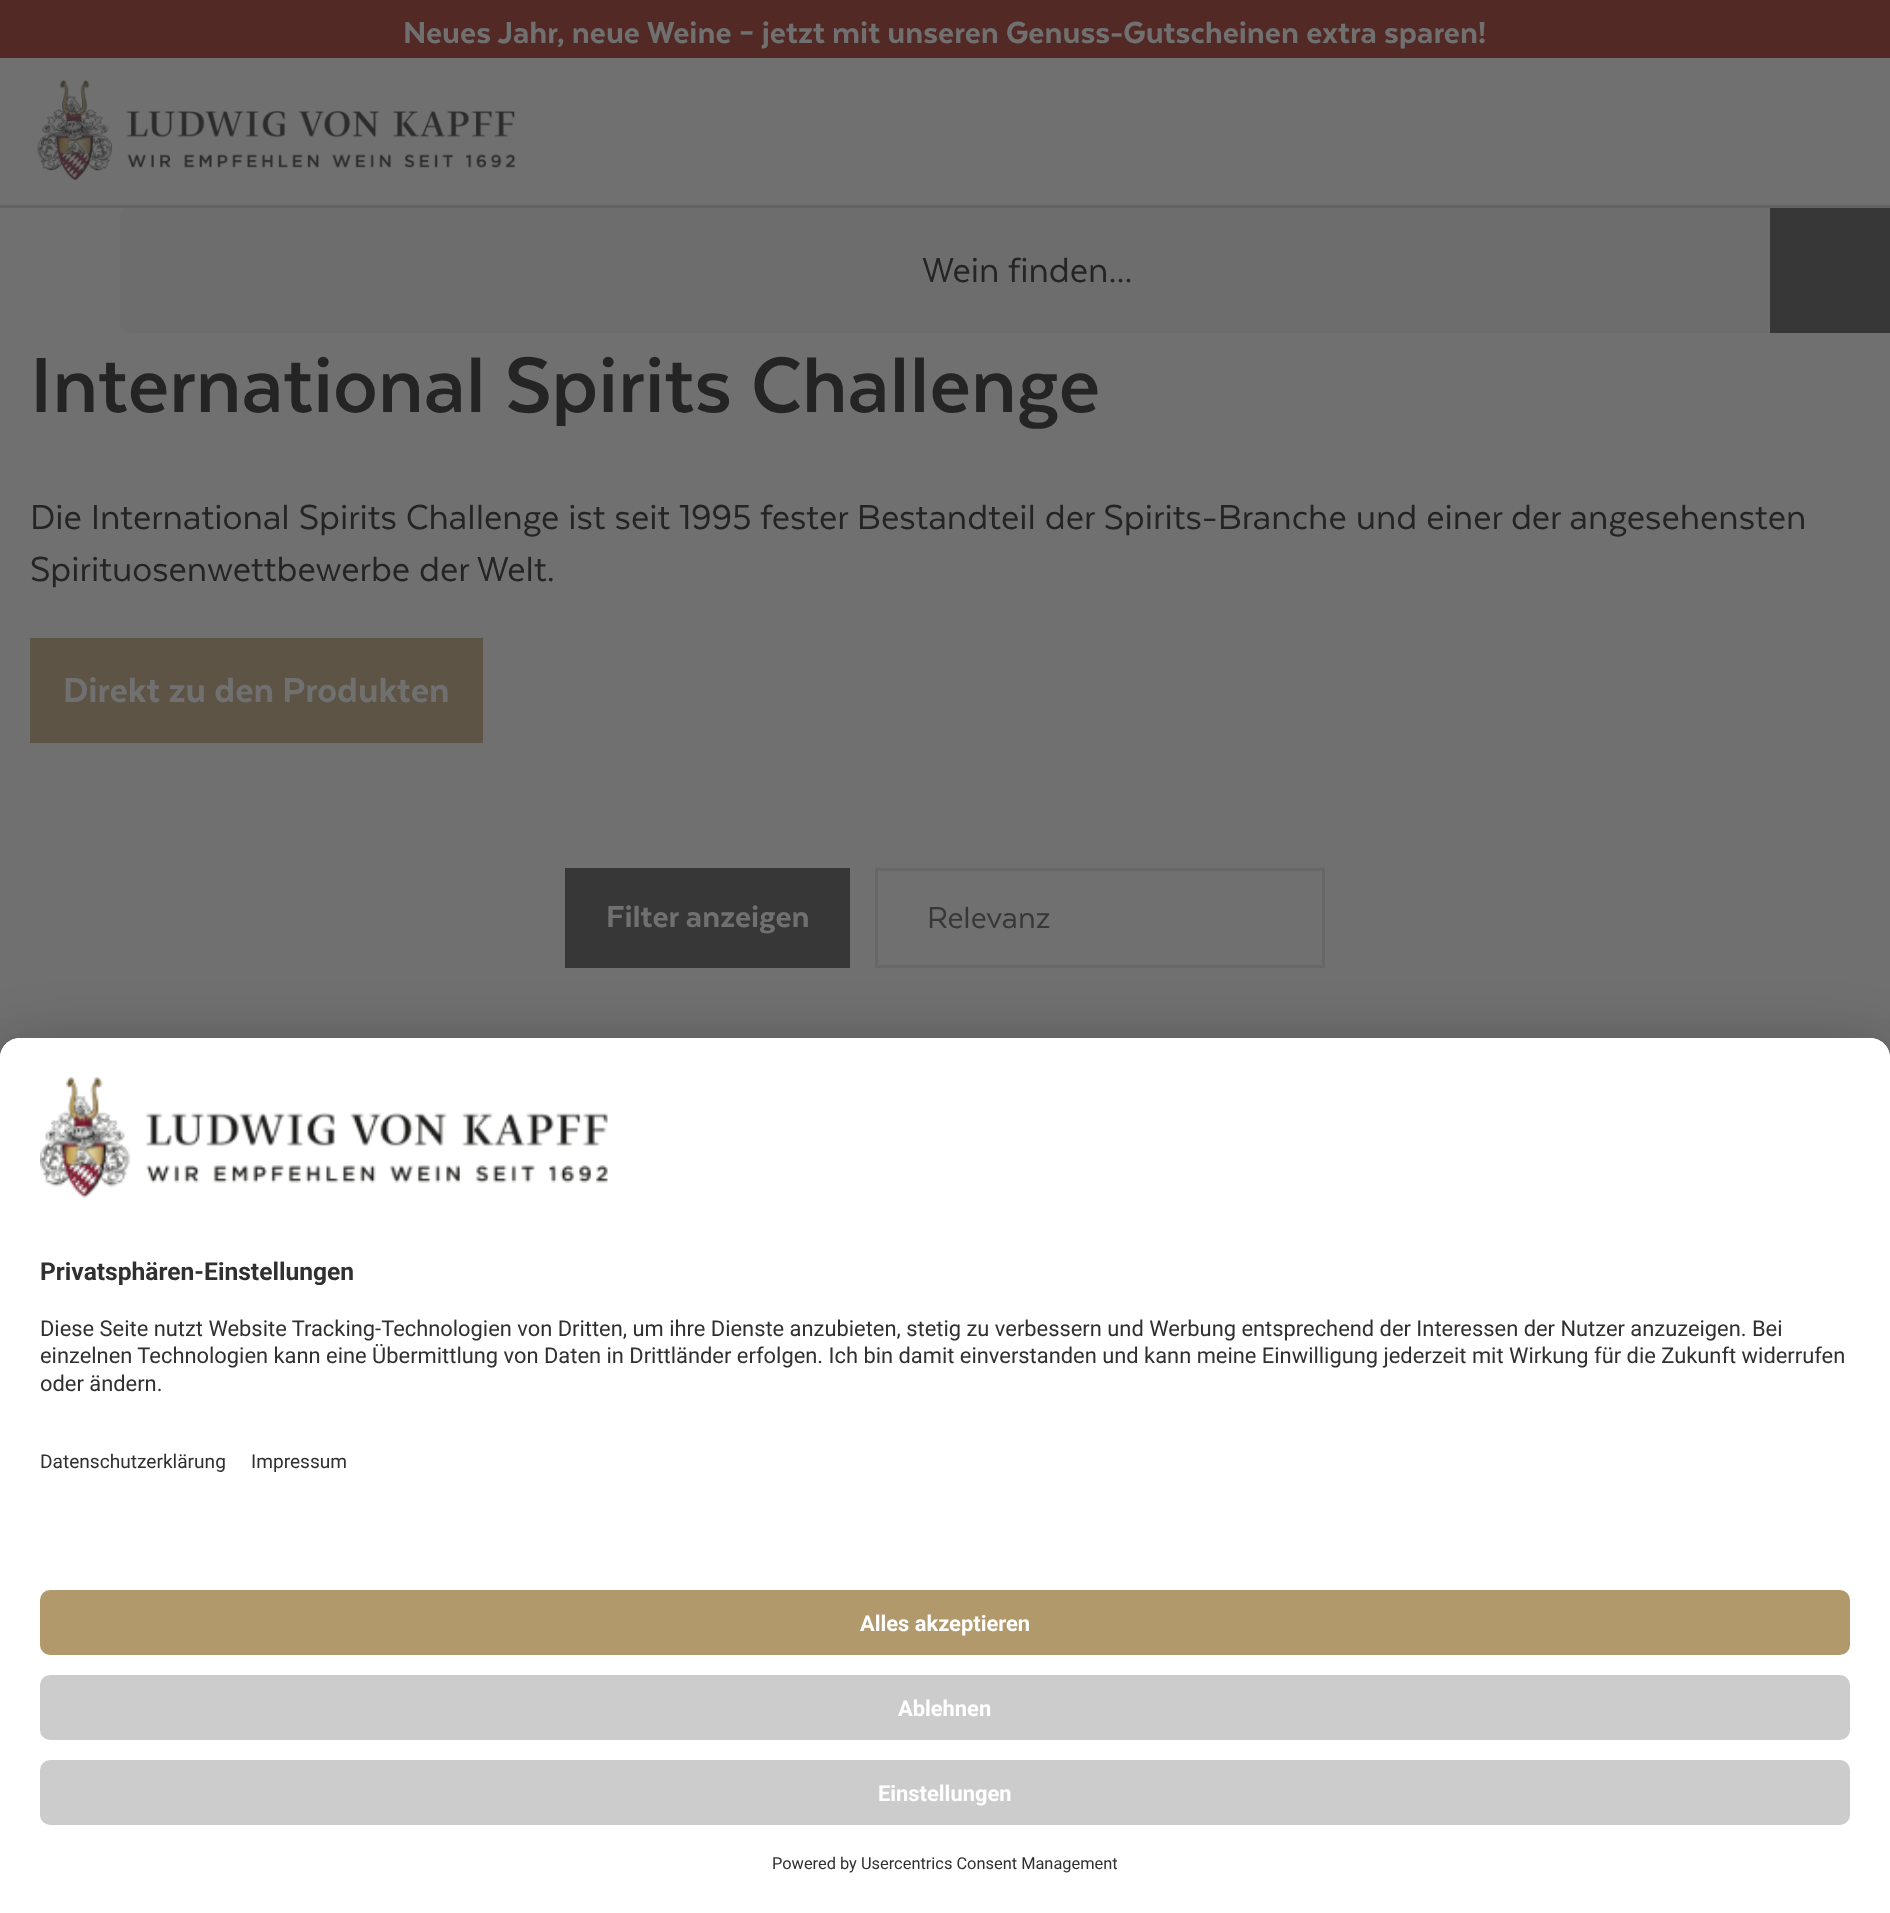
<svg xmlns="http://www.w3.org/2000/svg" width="1890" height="1913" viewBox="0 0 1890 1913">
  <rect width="100%" height="100%" fill="rgb(83,41,37)"/>
  <text x="403" y="43" font-family="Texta" font-size="35" font-weight="900" fill="rgb(112,112,112)">Neues Jahr, neue Weine – jetzt mit unseren Genuss-Gutscheinen extra sparen!</text>
  <rect x="0" y="58" width="1890" height="1000" fill="rgb(112,112,112)"/>
  <image x="37" y="80" width="478" height="100" href="pic1.png"/>
  <rect x="0" y="205" width="1890" height="3" fill="rgb(99,99,99)"/>
  <rect x="120" y="208" width="1770" height="125" rx="10" fill="rgb(109,109,109)"/>
  <text x="922" y="282" font-family="Texta" font-size="40" fill="rgb(36,36,36)">Wein finden...</text>
  <rect x="1770" y="208" width="120" height="125" fill="rgb(55,55,56)"/>
  <text x="30" y="412" font-family="Texta" font-size="90" font-weight="bold" fill="rgb(36,36,36)">International Spirits Challenge</text>
  <g font-family="Texta" font-size="40" fill="rgb(36,36,36)">
    <text>
      <tspan x="30" y="529">Die International Spirits Challenge ist seit 1995 fester Bestandteil der Spirits-Branche und einer der angesehensten</tspan>
      <tspan x="30" y="581">Spirituosenwettbewerbe der Welt.</tspan>
    </text>
  </g>
  <rect x="30" y="638" width="453" height="105" fill="rgb(93,84,69)"/>
  <text x="63" y="702" font-family="Texta" font-size="40" font-weight="900" fill="rgb(112,112,112)">Direkt zu den Produkten</text>
  <rect x="565" y="868" width="285" height="100" fill="rgb(55,55,56)"/>
  <text x="606" y="927" font-family="Texta" font-size="35" font-weight="900" fill="rgb(112,112,112)">Filter anzeigen</text>
  <rect x="876.5" y="869.5" width="447" height="97" fill="none" stroke="rgb(102,103,105)" stroke-width="3"/>
  <text x="927" y="928" font-family="Texta" font-size="35" fill="rgb(55,55,56)">Relevanz</text>
  <rect x="0" y="1088" width="1890" height="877" rx="20" fill="rgba(0,0,0,0.3)" filter="blur(35px)"/>
  <rect x="0" y="1050" width="1890" height="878" rx="20" fill="rgba(0,0,0,0.22)" filter="blur(32.5px)"/>
  <path d="M20 1038H1870C1881 1038 1890 1047 1890 1058V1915H0V1058C0 1047 9 1038 20 1038Z" fill="rgb(255,255,255)"/>
  <path d="M20 1038H1870C1881 1038 1890 1047 1890 1058V1560H0V1058C0 1047 9 1038 20 1038Z" fill="rgb(255,255,255)"/>
  <image x="40" y="1077" width="568" height="121" href="pic2.png"/>
  <text x="40" y="1280" font-family="Roboto" font-size="24.6" font-weight="bold" fill="rgb(48,48,48)">Privatsphären-Einstellungen</text>
  <g font-family="Roboto" font-size="21.88" fill="rgb(48,48,48)">
    <text>
      <tspan x="40" y="1336">Diese Seite nutzt Website Tracking-Technologien von Dritten, um ihre Dienste anzubieten, stetig zu verbessern und Werbung entsprechend der Interessen der Nutzer anzuzeigen. Bei</tspan>
      <tspan x="40" y="1363">einzelnen Technologien kann eine Übermittlung von Daten in Drittländer erfolgen. Ich bin damit einverstanden und kann meine Einwilligung jederzeit mit Wirkung für die Zukunft widerrufen</tspan>
      <tspan x="40" y="1391">oder ändern.</tspan>
    </text>
  </g>
  <g font-family="Roboto" font-size="19.1" fill="rgb(48,48,48)">
    <text x="40" y="1468">Datenschutzerklärung</text>
    <text x="251" y="1468">Impressum</text>
  </g>
  <rect x="40" y="1590" width="1810" height="65" rx="10" fill="rgb(178,153,108)"/>
  <text x="860" y="1631" font-family="Roboto" font-size="21.88" font-weight="bold" fill="rgb(255,255,255)">Alles akzeptieren</text>
  <rect x="40" y="1675" width="1810" height="65" rx="10" fill="rgb(204,204,204)"/>
  <text x="898" y="1716" font-family="Roboto" font-size="21.88" font-weight="bold" fill="rgb(255,255,255)">Ablehnen</text>
  <rect x="40" y="1760" width="1810" height="65" rx="10" fill="rgb(204,204,204)"/>
  <text x="878" y="1801" font-family="Roboto" font-size="21.88" font-weight="bold" fill="rgb(255,255,255)">Einstellungen</text>
  <text x="772" y="1869" font-family="Roboto" font-size="16.4" fill="rgb(48,48,48)">Powered by Usercentrics Consent Management</text>
</svg>
